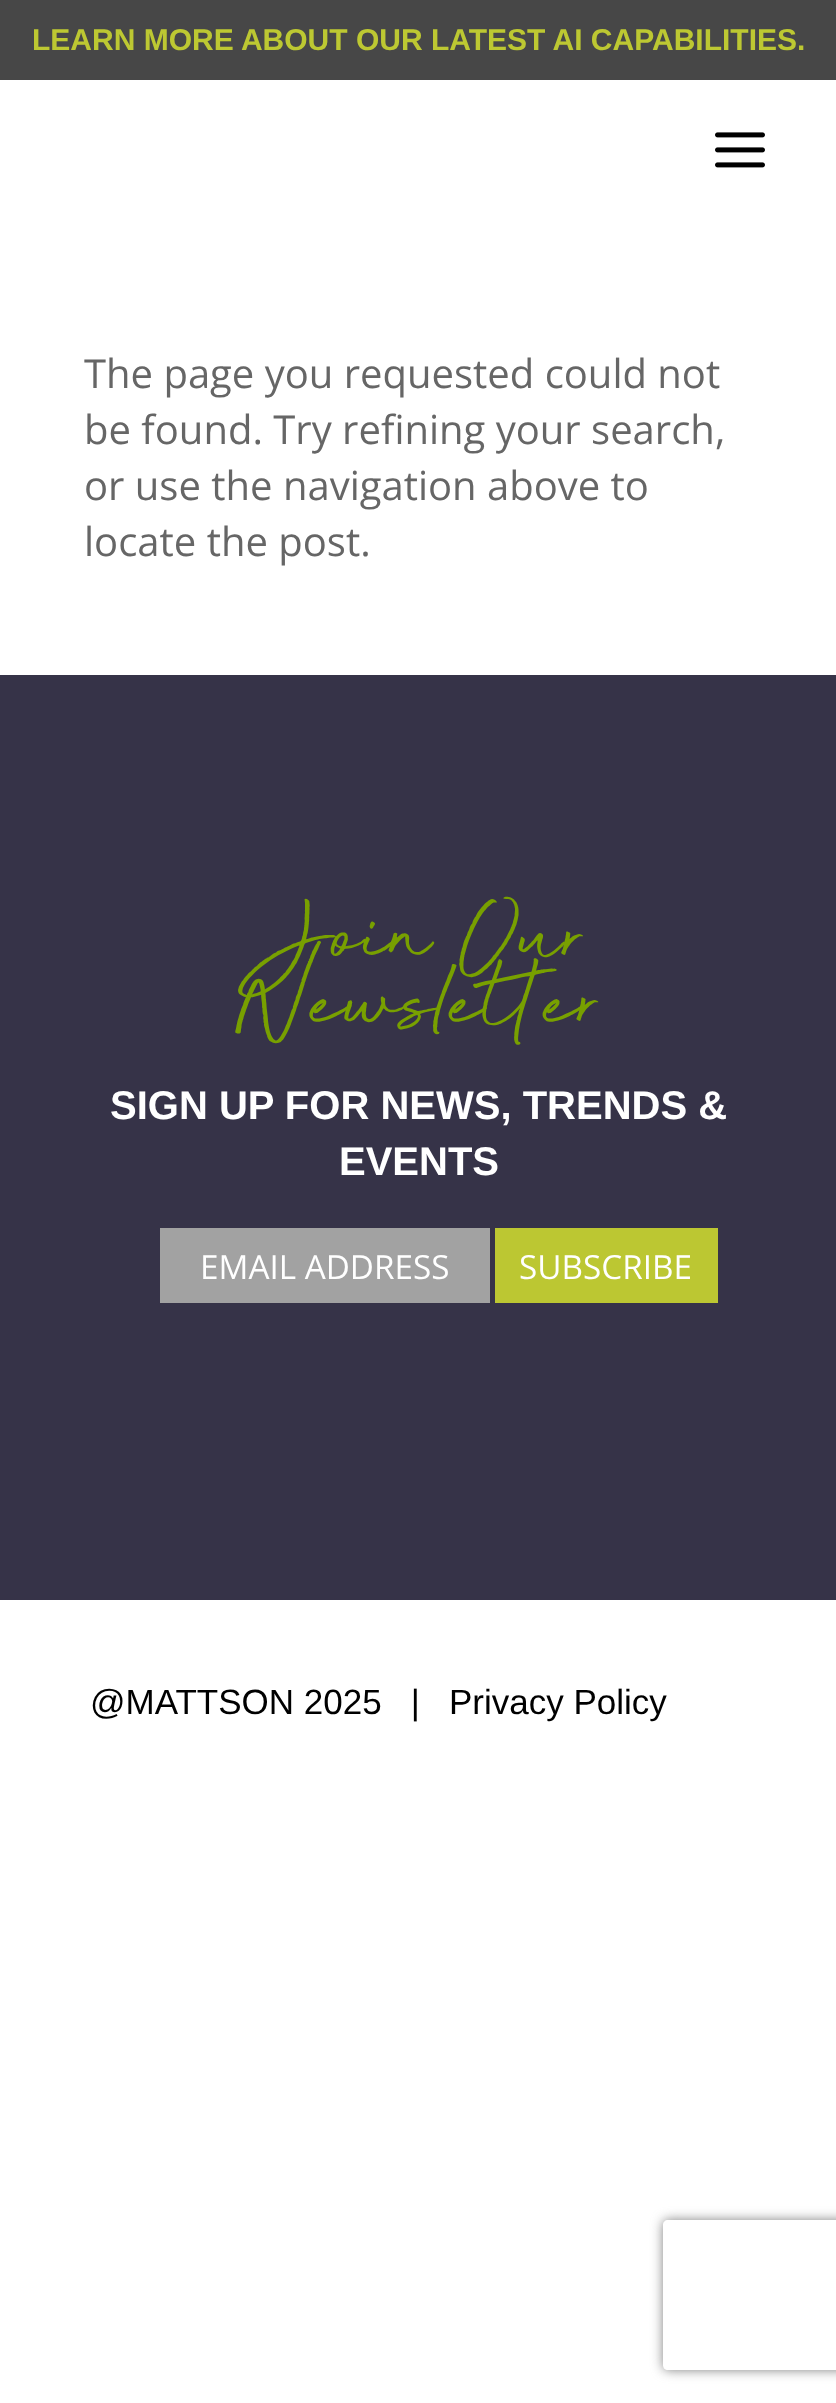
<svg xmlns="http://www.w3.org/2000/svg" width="836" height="2403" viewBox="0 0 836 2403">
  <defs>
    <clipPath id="clip1"><path d="M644 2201H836V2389H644ZM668 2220H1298C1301 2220 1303 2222 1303 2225V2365C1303 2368 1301 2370 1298 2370H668C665 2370 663 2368 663 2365V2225C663 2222 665 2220 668 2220Z" clip-rule="evenodd"/></clipPath>
  </defs>
  <rect width="100%" height="100%" fill="rgb(255,255,255)"/>
  <rect x="0" y="0" width="836" height="80" fill="rgb(71,71,71)"/>
  <text x="32" y="50" font-family="Liberation Sans" font-size="30" font-weight="bold" fill="rgb(189,200,50)">LEARN MORE ABOUT OUR LATEST AI CAPABILITIES.</text>
  <image x="715" y="132" width="50" height="36" href="pic1.png"/>
  <g font-family="Open Sans" font-size="40" fill="rgb(102,102,102)">
    <text>
      <tspan x="84" y="388">The page you requested could not</tspan>
      <tspan x="84" y="444">be found. Try refining your search,</tspan>
      <tspan x="84" y="500">or use the navigation above to</tspan>
      <tspan x="84" y="556">locate the post.</tspan>
    </text>
  </g>
  <rect x="0" y="675" width="836" height="925" fill="rgb(54,51,72)"/>
  <g font-family="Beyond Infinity" font-size="115" fill="rgb(120,160,0)">
    <text x="253" y="975">Join Our</text>
    <text x="237" y="1041">Newsletter</text>
  </g>
  <g font-family="Liberation Sans" font-size="40" font-weight="bold" fill="rgb(255,255,255)">
    <text x="110" y="1119">SIGN UP FOR NEWS, TRENDS &amp;</text>
    <text x="339" y="1175">EVENTS</text>
  </g>
  <rect x="160" y="1228" width="330" height="75" fill="rgb(162,162,162)"/>
  <text x="200" y="1279" font-family="Open Sans" font-size="33.25" fill="rgb(255,255,255)">EMAIL ADDRESS</text>
  <rect x="495" y="1228" width="223" height="75" fill="rgb(188,199,50)"/>
  <text x="519" y="1279" font-family="Open Sans" font-size="33.25" fill="rgb(255,255,255)">SUBSCRIBE</text>
  <g font-family="Liberation Sans" font-size="35" fill="rgb(0,0,0)">
    <text x="90" y="1714" xml:space="preserve">@MATTSON 2025   |</text>
    <text x="449" y="1714">Privacy Policy</text>
  </g>
  <g clip-path="url(#clip1)">
    <rect x="663" y="2220" width="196" height="150" rx="5" fill="rgb(128,128,128)" filter="blur(6px)"/>
  </g>
</svg>
